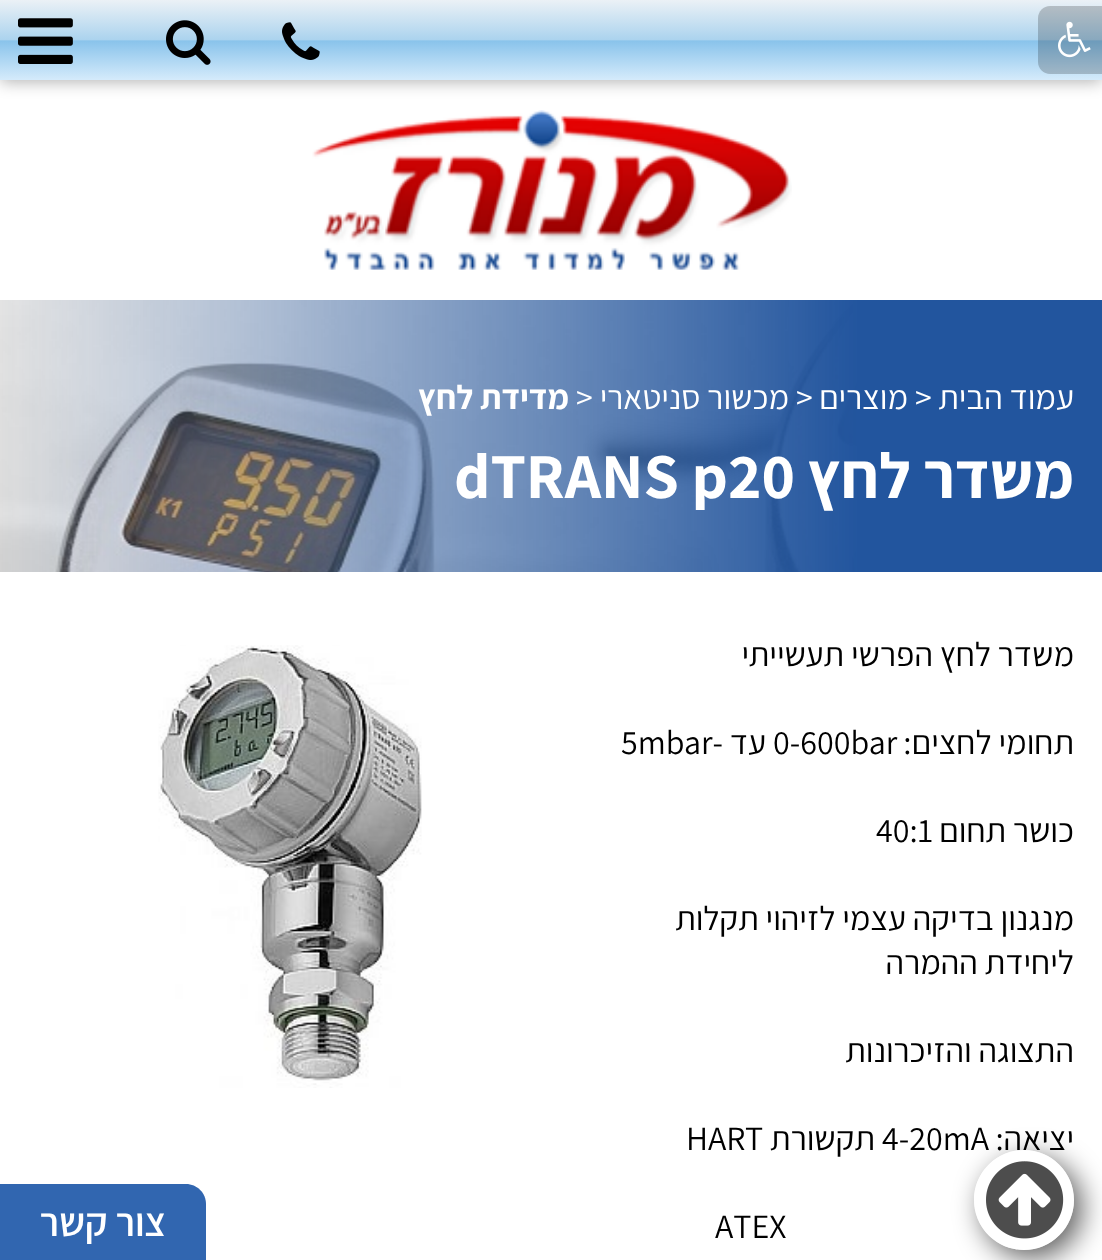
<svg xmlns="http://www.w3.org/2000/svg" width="1102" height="1260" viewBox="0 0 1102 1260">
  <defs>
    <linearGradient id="g1" gradientUnits="userSpaceOnUse" x1="551" y1="0" x2="551" y2="80"><stop offset="0" stop-color="rgb(235,241,246)"/><stop offset="0.5" stop-color="rgb(171,211,238)"/><stop offset="0.51" stop-color="rgb(137,195,235)"/><stop offset="1" stop-color="rgb(213,235,251)"/></linearGradient>
    <clipPath id="clip1"><path d="M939 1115H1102V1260H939ZM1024 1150C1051.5 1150 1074 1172.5 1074 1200C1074 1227.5 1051.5 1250 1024 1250C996.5 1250 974 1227.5 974 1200C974 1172.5 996.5 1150 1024 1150Z" clip-rule="evenodd"/></clipPath>
  </defs>
  <rect width="100%" height="100%" fill="rgb(255,255,255)"/>
  <rect x="0" y="2" width="1102" height="80" fill="rgba(0,0,0,0.3)" filter="blur(8px)"/>
  <rect x="0" y="0" width="1102" height="80" fill="url(#g1)"/>
  <path d="M1050 6H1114V74H1050C1043.5 74 1038 68.5 1038 62V18C1038 11.5 1043.5 6 1050 6Z" fill="rgba(0,0,0,0.2)"/>
  <image x="1058" y="21" width="33" height="37" href="pic1.png"/>
  <image x="282" y="22" width="38" height="38" href="pic2.png"/>
  <image x="166" y="20" width="45" height="45" href="pic3.png"/>
  <image x="18" y="18" width="55" height="46" href="pic4.png"/>
  <image x="312" y="110" width="480" height="160" href="pic5.png"/>
  <image x="0" y="300" width="1102" height="272" href="pic6.png"/>
  <text x="1074" y="409" font-family="Assistant" font-size="34" direction="rtl" fill="rgb(255,255,255)">עמוד הבית</text>
  <text x="915" y="409" font-family="Assistant" font-size="34" fill="rgb(255,255,255)">&gt;</text>
  <text x="908" y="409" font-family="Assistant" font-size="34" direction="rtl" fill="rgb(255,255,255)">מוצרים</text>
  <text x="796" y="409" font-family="Assistant" font-size="34" fill="rgb(255,255,255)">&gt;</text>
  <text x="789" y="409" font-family="Assistant" font-size="34" direction="rtl" fill="rgb(255,255,255)">מכשור סניטארי</text>
  <text x="576" y="409" font-family="Assistant" font-size="34" fill="rgb(255,255,255)">&gt;</text>
  <text x="569" y="409" font-family="Assistant" font-size="34" font-weight="bold" direction="rtl" fill="rgb(255,255,255)">מדידת לחץ</text>
  <text x="1074" y="498" font-family="Assistant" font-size="64" font-weight="bold" direction="rtl" fill="rgb(255,255,255)">משדר לחץ</text>
  <text x="454" y="498" font-family="Assistant" font-size="64" font-weight="bold" fill="rgb(255,255,255)">dTRANS p20</text>
  <g font-family="Assistant" font-size="34" direction="rtl" fill="rgb(0,0,0)">
    <text x="1074" y="666">משדר לחץ הפרשי תעשייתי</text>
    <text x="1074" y="754">תחומי לחצים:</text>
  </g>
  <text x="773" y="754" font-family="Assistant" font-size="34" fill="rgb(0,0,0)">0-600bar</text>
  <text x="766" y="754" font-family="Assistant" font-size="34" direction="rtl" fill="rgb(0,0,0)">עד -</text>
  <text x="621" y="754" font-family="Assistant" font-size="34" fill="rgb(0,0,0)">5mbar</text>
  <text x="1074" y="842" font-family="Assistant" font-size="34" direction="rtl" fill="rgb(0,0,0)">כושר תחום</text>
  <text x="876" y="842" font-family="Assistant" font-size="34" fill="rgb(0,0,0)">40:1</text>
  <g font-family="Assistant" font-size="34" direction="rtl" fill="rgb(0,0,0)">
    <text>
      <tspan x="1074" y="930">מנגנון בדיקה עצמי לזיהוי תקלות</tspan>
      <tspan x="1074" y="974">ליחידת ההמרה</tspan>
    </text>
    <text x="1074" y="1062">התצוגה והזיכרונות</text>
    <text x="1074" y="1150">יציאה:</text>
  </g>
  <text x="882" y="1150" font-family="Assistant" font-size="34" fill="rgb(0,0,0)">4-20mA</text>
  <text x="875" y="1150" font-family="Assistant" font-size="34" direction="rtl" fill="rgb(0,0,0)">תקשורת</text>
  <g font-family="Assistant" font-size="34" fill="rgb(0,0,0)">
    <text x="686" y="1150">HART</text>
    <text x="715" y="1238">ATEX</text>
  </g>
  <image x="158" y="645" width="264" height="443" href="pic7.png"/>
  <g clip-path="url(#clip1)">
    <rect x="982" y="1158" width="100" height="100" rx="50" fill="rgba(0,0,0,0.63)" filter="blur(14px)"/>
  </g>
  <circle cx="1024" cy="1200" r="50" fill="rgba(255,255,255,0.7)"/>
  <image x="986" y="1161" width="78" height="78" href="pic8.png"/>
  <path d="M0 1184H186C197 1184 206 1193 206 1204V1260H0Z" fill="rgb(49,102,176)"/>
  <text x="166" y="1236" font-family="Assistant" font-size="40" font-weight="600" direction="rtl" fill="rgb(255,255,255)">צור קשר</text>
</svg>
